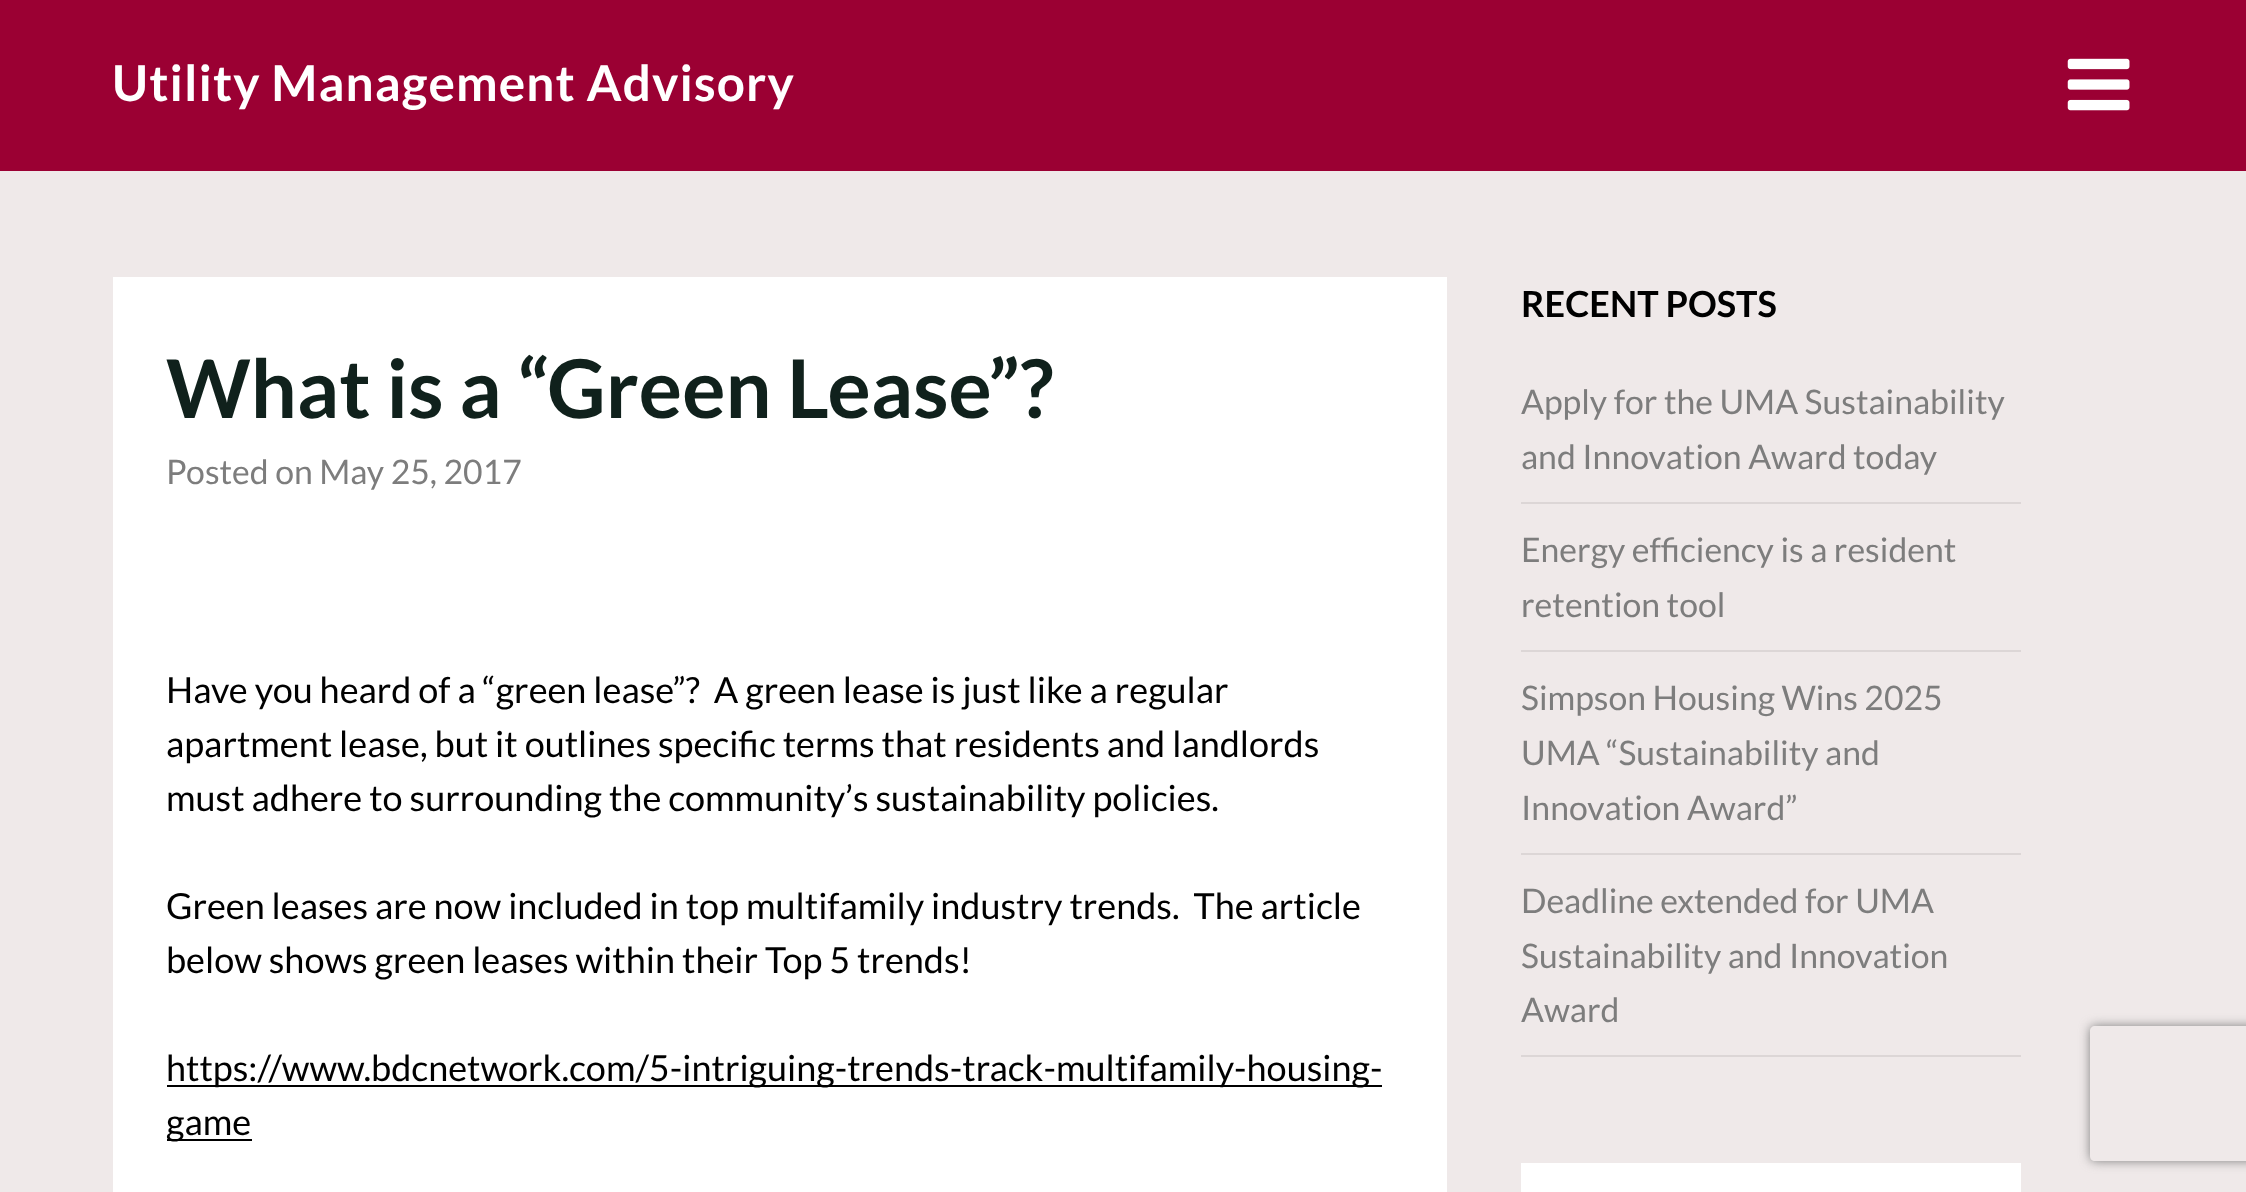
<svg xmlns="http://www.w3.org/2000/svg" width="2246" height="1192" viewBox="0 0 2246 1192">
  <defs>
    <clipPath id="clip1"><path d="M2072 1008H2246V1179H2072ZM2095 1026H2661C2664 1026 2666 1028 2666 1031V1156C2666 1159 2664 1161 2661 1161H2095C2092 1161 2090 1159 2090 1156V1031C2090 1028 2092 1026 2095 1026Z" clip-rule="evenodd"/></clipPath>
  </defs>
  <rect width="100%" height="100%" fill="rgb(239,233,233)"/>
  <rect x="0" y="0" width="2246" height="171" fill="rgb(155,0,51)"/>
  <text x="112" y="101" font-family="Lato" font-size="49.5" font-weight="bold" letter-spacing="1.1" fill="rgb(255,255,255)">Utility Management Advisory</text>
  <image x="2067" y="58" width="63" height="53" href="pic1.png"/>
  <rect x="113" y="277" width="1334" height="915" fill="rgb(255,255,255)"/>
  <text x="166" y="418" font-family="Lato" font-size="81" font-weight="bold" fill="rgb(16,33,28)">What is a “Green Lease”?</text>
  <text x="166" y="484" font-family="Lato" font-size="33.75" fill="rgb(125,125,125)">Posted on May 25, 2017</text>
  <g font-family="Lato" font-size="36" fill="rgb(0,0,0)">
    <text xml:space="preserve"><tspan x="166" y="703">Have you heard of a “green lease”?  A green lease is just like a regular</tspan><tspan x="166" y="757">apartment lease, but it outlines specific terms that residents and landlords</tspan><tspan x="166" y="811">must adhere to surrounding the community’s sustainability policies.</tspan></text>
    <text xml:space="preserve"><tspan x="166" y="919">Green leases are now included in top multifamily industry trends.  The article</tspan><tspan x="166" y="973">below shows green leases within their Top 5 trends!</tspan></text>
  </g>
  <rect x="167" y="1085" width="1215" height="2" fill="rgb(0,0,0)"/>
  <text x="166" y="1081" font-family="Lato" font-size="36" fill="rgb(0,0,0)">https://www.bdcnetwork.com/5-intriguing-trends-track-multifamily-housing-</text>
  <rect x="167" y="1139" width="85" height="2" fill="rgb(0,0,0)"/>
  <text x="166" y="1135" font-family="Lato" font-size="36" fill="rgb(0,0,0)">game</text>
  <text x="1521" y="317" font-family="Lato" font-size="36" font-weight="bold" fill="rgb(0,0,0)">RECENT POSTS</text>
  <rect x="1521" y="502" width="500" height="2" fill="rgb(220,214,214)"/>
  <g font-family="Lato" font-size="33.75" fill="rgb(125,125,125)">
    <text>
      <tspan x="1521" y="414">Apply for the UMA Sustainability</tspan>
      <tspan x="1521" y="469">and Innovation Award today</tspan>
    </text>
  </g>
  <rect x="1521" y="650" width="500" height="2" fill="rgb(220,214,214)"/>
  <g font-family="Lato" font-size="33.75" fill="rgb(125,125,125)">
    <text>
      <tspan x="1521" y="562">Energy efficiency is a resident</tspan>
      <tspan x="1521" y="617">retention tool</tspan>
    </text>
  </g>
  <rect x="1521" y="853" width="500" height="2" fill="rgb(220,214,214)"/>
  <g font-family="Lato" font-size="33.75" fill="rgb(125,125,125)">
    <text>
      <tspan x="1521" y="710">Simpson Housing Wins 2025</tspan>
      <tspan x="1521" y="765">UMA “Sustainability and</tspan>
      <tspan x="1521" y="820">Innovation Award”</tspan>
    </text>
  </g>
  <rect x="1521" y="1055" width="500" height="2" fill="rgb(220,214,214)"/>
  <g font-family="Lato" font-size="33.75" fill="rgb(125,125,125)">
    <text>
      <tspan x="1521" y="913">Deadline extended for UMA</tspan>
      <tspan x="1521" y="968">Sustainability and Innovation</tspan>
      <tspan x="1521" y="1022">Award</tspan>
    </text>
  </g>
  <rect x="1521" y="1163" width="500" height="29" fill="rgb(255,255,255)"/>
  <g clip-path="url(#clip1)">
    <rect x="2090" y="1026" width="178" height="135" rx="5" fill="rgb(128,128,128)" filter="blur(5.5px)"/>
  </g>
</svg>
